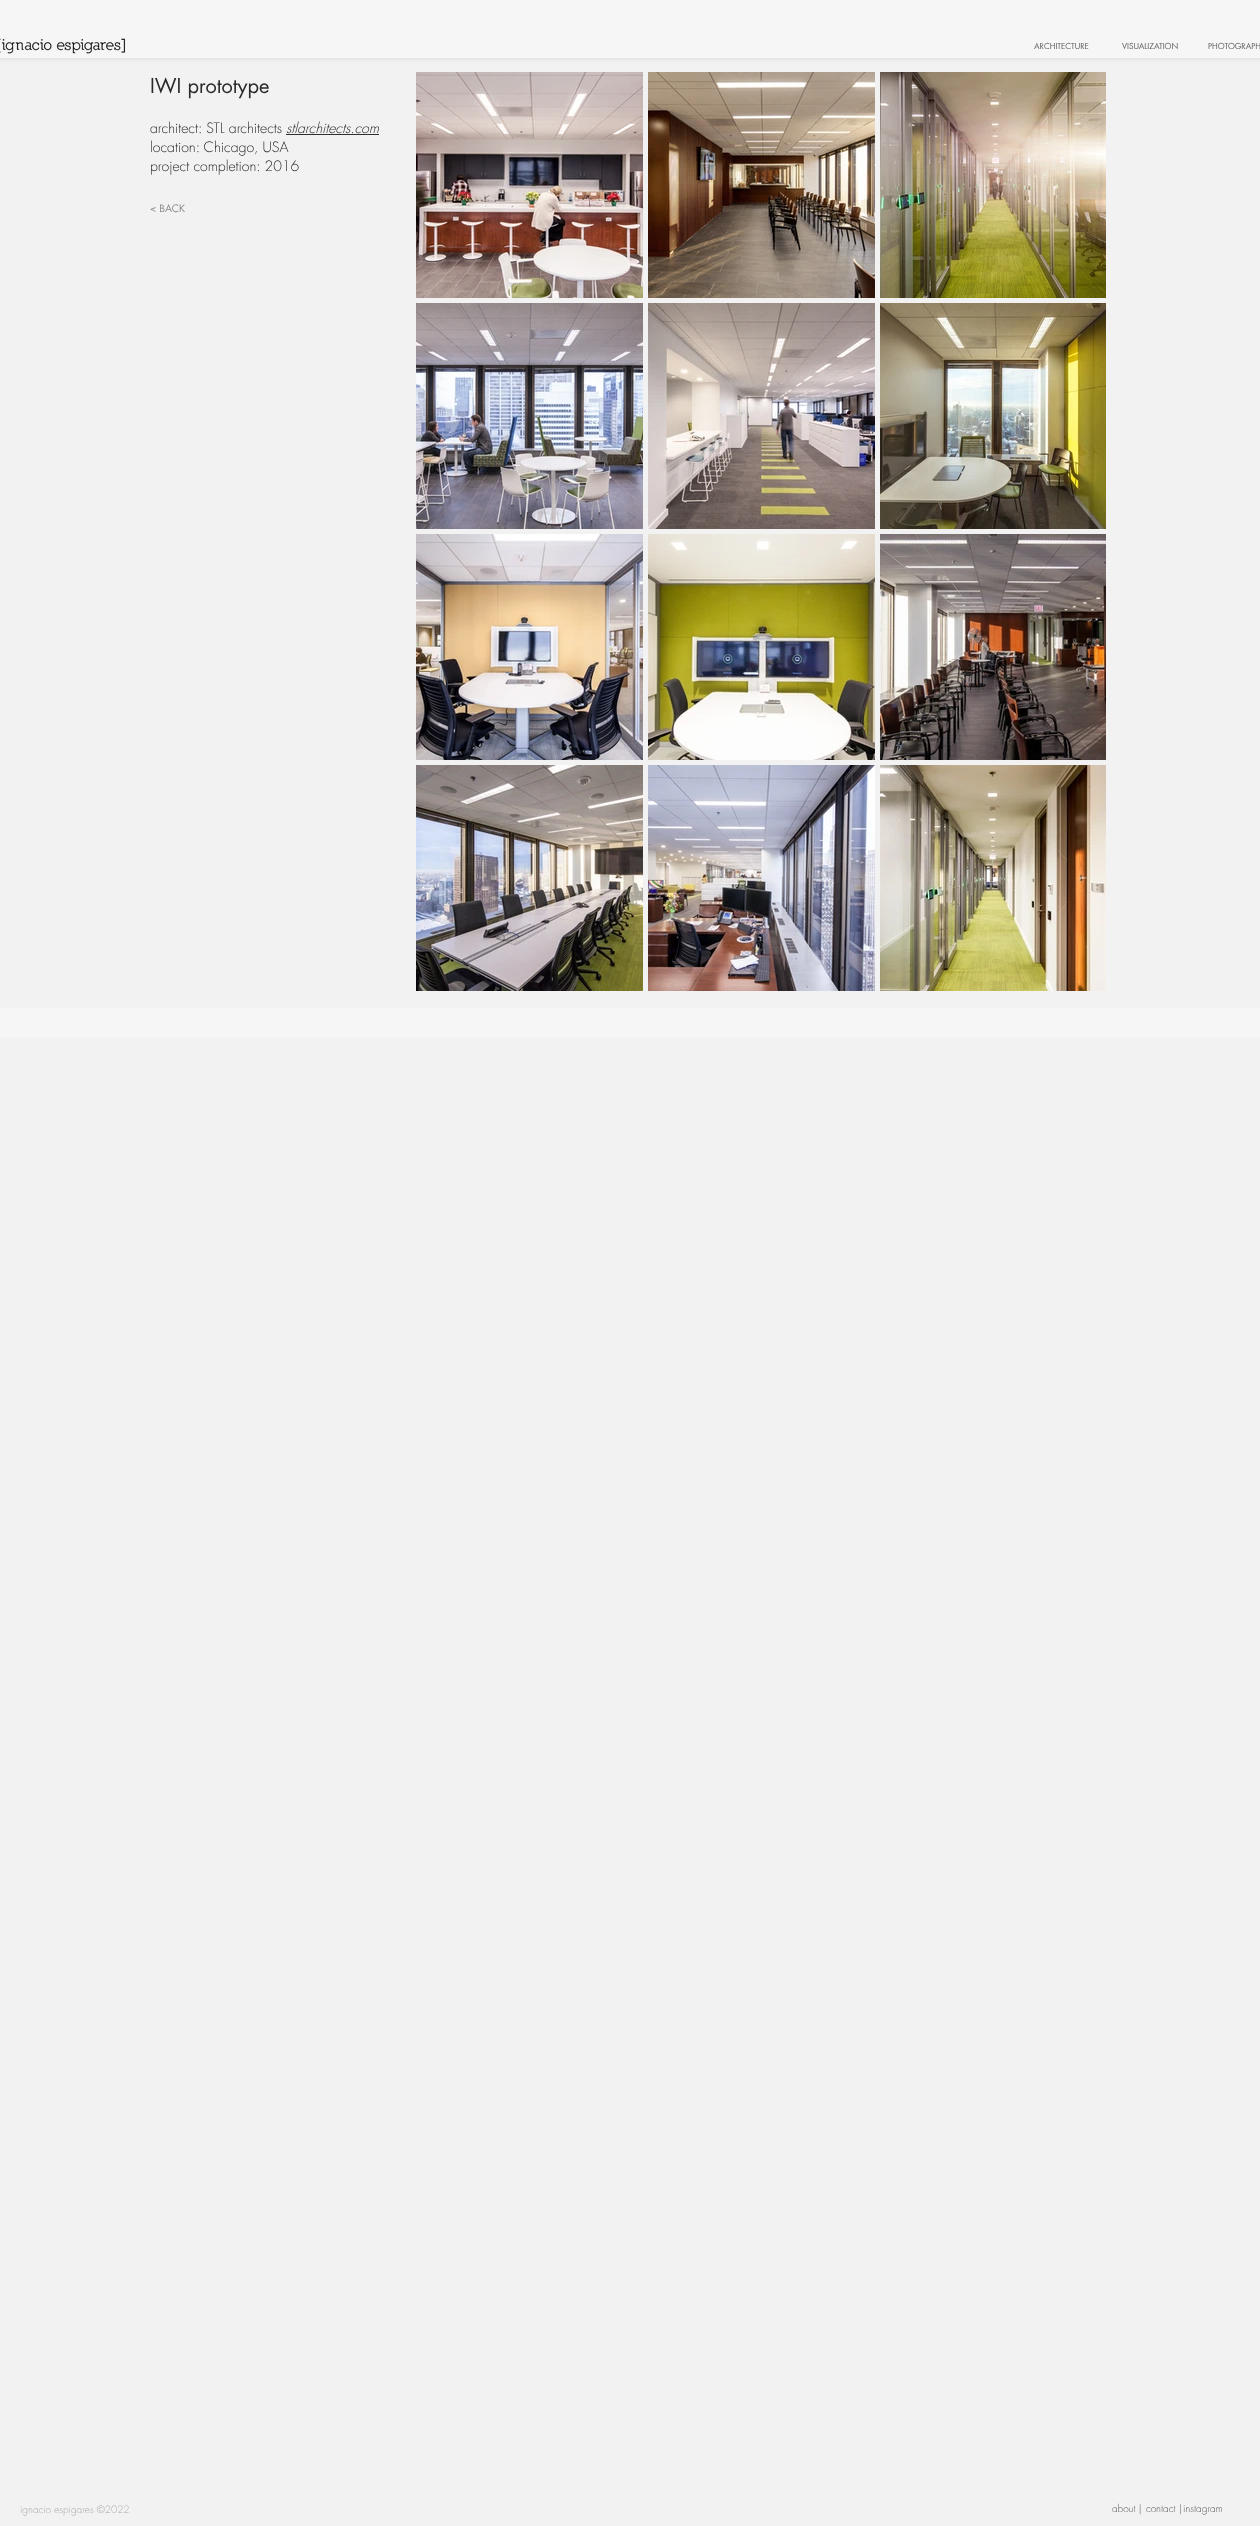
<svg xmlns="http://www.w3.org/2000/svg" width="1260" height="2526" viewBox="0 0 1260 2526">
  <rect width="100%" height="100%" fill="rgb(242,242,242)"/>
  <rect x="-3" y="-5" width="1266" height="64" fill="rgba(137,137,137,0.2)" filter="blur(2px)"/>
  <rect x="0" y="0" width="1260" height="58" fill="rgb(246,246,246)"/>
  <image x="0" y="38" width="126" height="16" href="pic1.png"/>
  <g font-family="futura" font-size="8" fill="rgb(91,91,91)">
    <text x="1034" y="49">ARCHITECTURE</text>
    <text x="1122" y="49">VISUALIZATION</text>
    <text x="1208" y="49">PHOTOGRAPH</text>
  </g>
  <text x="150" y="93" font-family="futura" font-size="20" fill="rgb(41,41,41)">IWI prototype</text>
  <text x="150" y="133" font-family="futura" font-size="14" font-weight="300" fill="rgb(41,41,41)">architect: STL architects</text>
  <text x="286" y="133" font-family="futura" font-size="14" font-weight="300" font-style="italic" fill="rgb(41,41,41)">stlarchitects.com</text>
  <rect x="286" y="134" width="93" height="1" fill="rgb(46,46,46)"/>
  <g font-family="futura" font-size="14" font-weight="300" fill="rgb(41,41,41)">
    <text>
      <tspan x="150" y="152">location: Chicago, USA</tspan>
      <tspan x="150" y="171">project completion: 2016</tspan>
    </text>
  </g>
  <image x="416" y="72" width="227" height="226" href="pic2.png"/>
  <image x="648" y="72" width="227" height="226" href="pic3.png"/>
  <image x="880" y="72" width="226" height="226" href="pic4.png"/>
  <image x="416" y="303" width="227" height="226" href="pic5.png"/>
  <image x="648" y="303" width="227" height="226" href="pic6.png"/>
  <image x="880" y="303" width="226" height="226" href="pic7.png"/>
  <image x="416" y="534" width="227" height="226" href="pic8.png"/>
  <image x="648" y="534" width="227" height="226" href="pic9.png"/>
  <image x="880" y="534" width="226" height="226" href="pic10.png"/>
  <image x="416" y="765" width="227" height="226" href="pic11.png"/>
  <image x="648" y="765" width="227" height="226" href="pic12.png"/>
  <image x="880" y="765" width="226" height="226" href="pic13.png"/>
  <text x="150" y="212" font-family="futura" font-size="10" fill="rgb(137,137,137)">&lt; BACK</text>
  <rect x="0" y="1008" width="1260" height="29" fill="rgb(246,246,246)"/>
  <text x="20" y="2513" font-family="futura" font-size="10" font-weight="300" fill="rgb(170,170,170)">ignacio espigares ©2022</text>
  <g font-family="futura" font-size="10" font-weight="300" fill="rgb(91,91,91)">
    <text x="1112" y="2512">about |</text>
    <text x="1146" y="2512">contact |</text>
    <text x="1183" y="2512">instagram</text>
  </g>
</svg>
